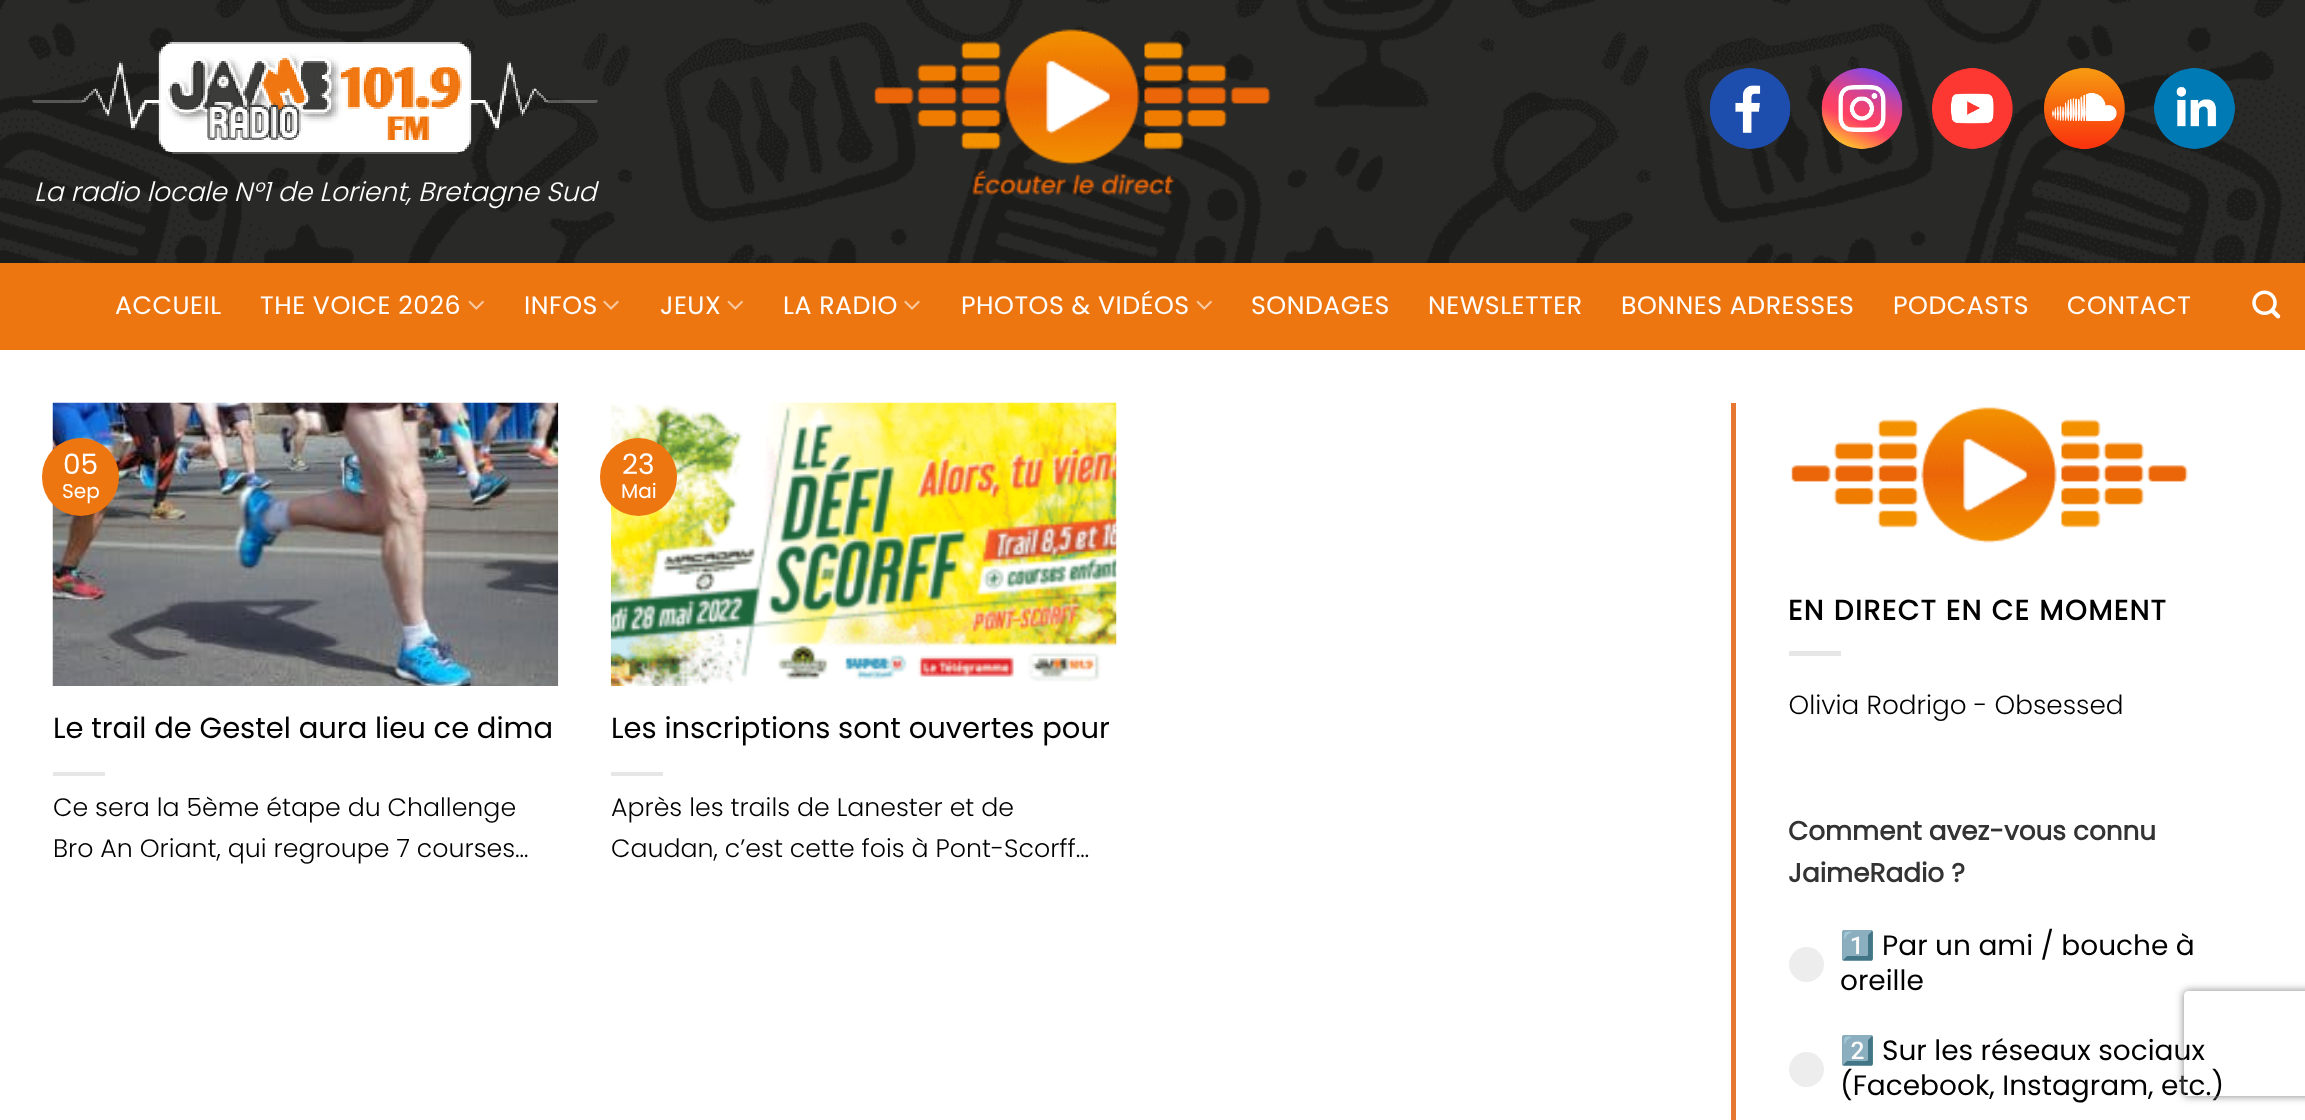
<svg xmlns="http://www.w3.org/2000/svg" width="2305" height="1120" viewBox="0 0 2305 1120">
  <defs>
    <clipPath id="clip1"><path d="M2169 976H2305V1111H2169ZM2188 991H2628C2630 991 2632 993 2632 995V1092C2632 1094 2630 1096 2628 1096H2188C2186 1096 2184 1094 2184 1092V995C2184 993 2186 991 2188 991Z" clip-rule="evenodd"/></clipPath>
  </defs>
  <rect width="100%" height="100%" fill="rgb(255,255,255)"/>
  <image x="0" y="0" width="2305" height="263" href="pic1.png"/>
  <image x="874" y="29" width="397" height="166" href="pic2.png"/>
  <image x="1709" y="68" width="82" height="81" href="pic3.png"/>
  <image x="1821" y="67" width="82" height="82" href="pic4.png"/>
  <image x="1932" y="68" width="81" height="81" href="pic5.png"/>
  <image x="2044" y="67" width="81" height="83" href="pic6.png"/>
  <image x="2154" y="68" width="81" height="81" href="pic7.png"/>
  <image x="32" y="42" width="566" height="112" href="pic8.png"/>
  <text x="34" y="201" font-family="Poppins" font-size="26.6" font-weight="300" font-style="italic" fill="rgb(255,255,255)">La radio locale N°1 de Lorient, Bretagne Sud</text>
  <rect x="0" y="263" width="2305" height="87" fill="rgb(238,118,17)"/>
  <g font-family="Poppins" font-size="25.25" letter-spacing="0.5" fill="rgb(255,255,255)">
    <text x="115" y="314">ACCUEIL</text>
    <text x="260" y="314">THE VOICE 2026</text>
  </g>
  <image x="468" y="300" width="16" height="10" href="pic9.png"/>
  <text x="524" y="314" font-family="Poppins" font-size="25.25" letter-spacing="0.5" fill="rgb(255,255,255)">INFOS</text>
  <image x="603" y="300" width="16" height="10" href="pic10.png"/>
  <text x="660" y="314" font-family="Poppins" font-size="25.25" letter-spacing="0.5" fill="rgb(255,255,255)">JEUX</text>
  <image x="727" y="300" width="16" height="10" href="pic9.png"/>
  <text x="783" y="314" font-family="Poppins" font-size="25.25" letter-spacing="0.5" fill="rgb(255,255,255)">LA RADIO</text>
  <image x="904" y="300" width="16" height="10" href="pic10.png"/>
  <text x="961" y="314" font-family="Poppins" font-size="25.25" letter-spacing="0.5" fill="rgb(255,255,255)">PHOTOS &amp; VIDÉOS</text>
  <image x="1196" y="300" width="16" height="10" href="pic9.png"/>
  <g font-family="Poppins" font-size="25.25" letter-spacing="0.5" fill="rgb(255,255,255)">
    <text x="1251" y="314">SONDAGES</text>
    <text x="1428" y="314">NEWSLETTER</text>
    <text x="1621" y="314">BONNES ADRESSES</text>
    <text x="1893" y="314">PODCASTS</text>
    <text x="2067" y="314">CONTACT</text>
  </g>
  <image x="2252" y="290" width="29" height="29" href="pic11.png"/>
  <image x="52" y="402" width="507" height="284" href="pic12.png"/>
  <rect x="42" y="438" width="77" height="78" rx="38.5" fill="rgb(238,118,17)"/>
  <text x="63" y="474" font-family="Poppins" font-size="28" fill="rgb(255,255,255)">05</text>
  <text x="62" y="498" font-family="Poppins" font-size="20" fill="rgb(255,255,255)">Sep</text>
  <text x="53" y="738" font-family="Poppins" font-size="29" fill="rgb(0,0,0)">Le trail de Gestel aura lieu ce dima</text>
  <rect x="53" y="772" width="52" height="4" fill="rgb(230,230,230)"/>
  <g font-family="Poppins" font-size="25.25" font-weight="300" fill="rgb(0,0,0)">
    <text>
      <tspan x="53" y="816">Ce sera la 5ème étape du Challenge</tspan>
      <tspan x="53" y="857">Bro An Oriant, qui regroupe 7 courses…</tspan>
    </text>
  </g>
  <image x="610" y="402" width="507" height="284" href="pic13.png"/>
  <rect x="600" y="438" width="77" height="78" rx="38.5" fill="rgb(238,118,17)"/>
  <text x="622" y="474" font-family="Poppins" font-size="28" fill="rgb(255,255,255)">23</text>
  <text x="621" y="498" font-family="Poppins" font-size="20" fill="rgb(255,255,255)">Mai</text>
  <text x="611" y="738" font-family="Poppins" font-size="29" fill="rgb(0,0,0)">Les inscriptions sont ouvertes pour</text>
  <rect x="611" y="772" width="52" height="4" fill="rgb(230,230,230)"/>
  <g font-family="Poppins" font-size="25.25" font-weight="300" fill="rgb(0,0,0)">
    <text>
      <tspan x="611" y="816">Après les trails de Lanester et de</tspan>
      <tspan x="611" y="857">Caudan, c’est cette fois à Pont-Scorff…</tspan>
    </text>
  </g>
  <rect x="1731" y="403" width="5" height="717" fill="rgb(229,119,48)"/>
  <image x="1791" y="407" width="397" height="136" href="pic14.png"/>
  <text x="1788" y="620" font-family="Poppins" font-size="28" font-weight="bold" letter-spacing="1.4" fill="rgb(0,0,0)">EN DIRECT EN CE MOMENT</text>
  <rect x="1789" y="651" width="52" height="5" fill="rgb(230,230,230)"/>
  <image x="1789" y="694" width="333" height="27" href="pic15.png"/>
  <g font-family="Poppins" font-size="26.25" font-weight="bold" fill="rgb(51,51,51)">
    <text>
      <tspan x="1788" y="840">Comment avez-vous connu</tspan>
      <tspan x="1788" y="882">JaimeRadio ?</tspan>
    </text>
  </g>
  <circle cx="1806.5" cy="964.5" r="17.5" fill="rgb(237,237,237)"/>
  <text x="1840" y="955" font-family="Noto Color Emoji" font-size="28" fill="rgb(0,0,0)">1️⃣</text>
  <g font-family="Poppins" font-size="28" fill="rgb(0,0,0)">
    <text x="1882" y="955">Par un ami / bouche à</text>
    <text x="1840" y="990">oreille</text>
  </g>
  <circle cx="1806.5" cy="1069.5" r="17.5" fill="rgb(237,237,237)"/>
  <text x="1840" y="1060" font-family="Noto Color Emoji" font-size="28" fill="rgb(0,0,0)">2️⃣</text>
  <g font-family="Poppins" font-size="28" fill="rgb(0,0,0)">
    <text x="1882" y="1060">Sur les réseaux sociaux</text>
    <text x="1840" y="1095">(Facebook, Instagram, etc.)</text>
  </g>
  <g clip-path="url(#clip1)">
    <rect x="2184" y="991" width="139" height="105" rx="4" fill="rgb(128,128,128)" filter="blur(4.5px)"/>
  </g>
</svg>
